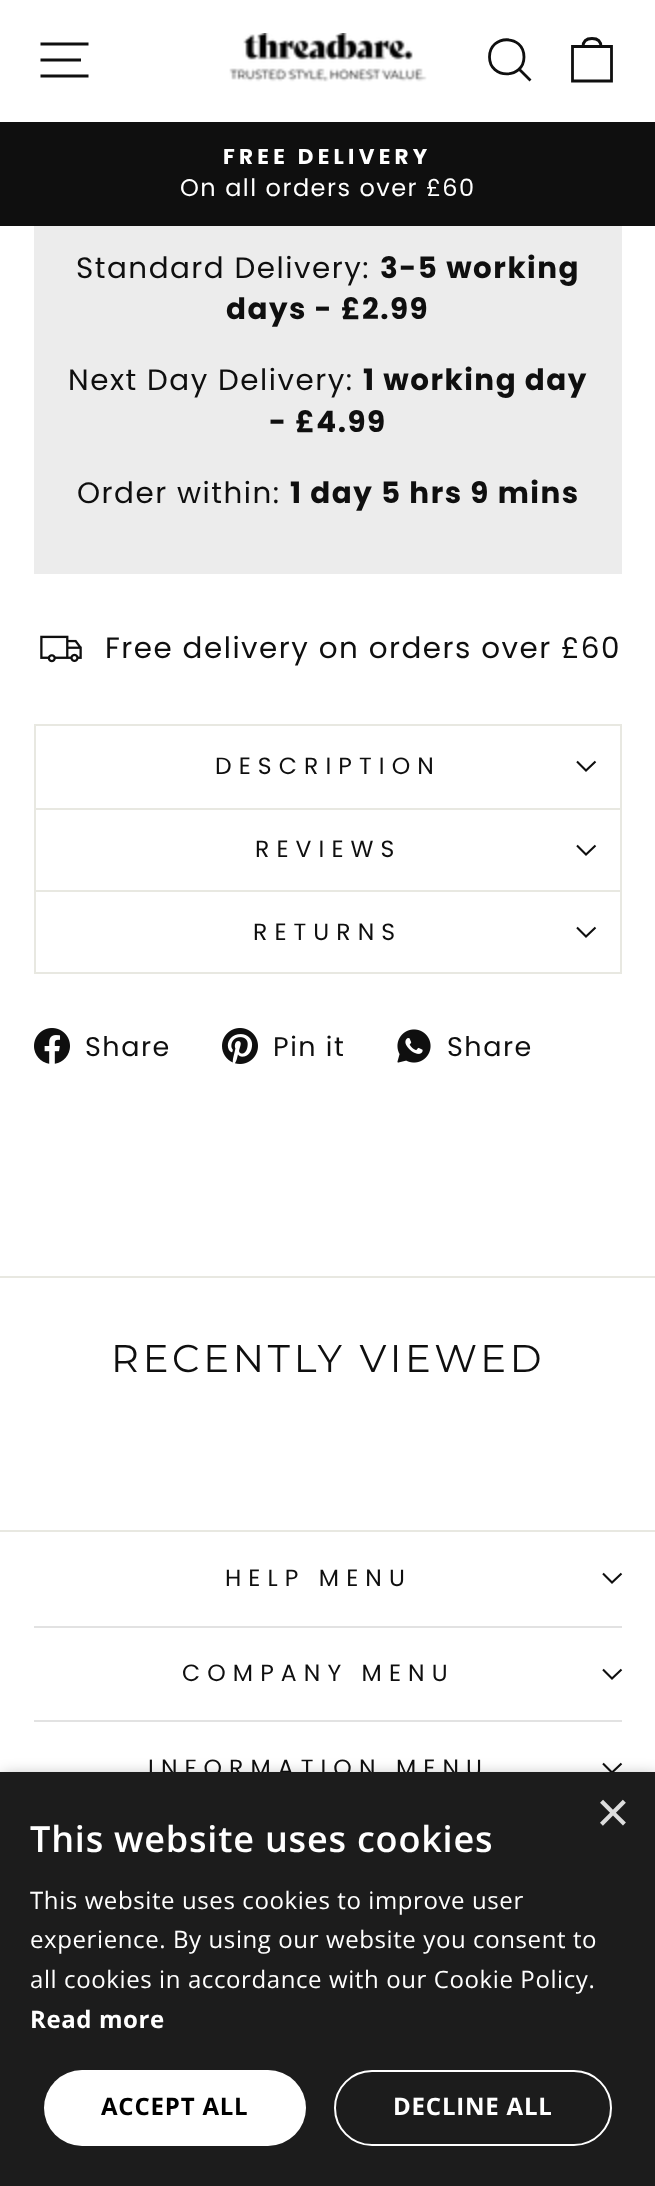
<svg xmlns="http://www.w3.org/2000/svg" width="655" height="2186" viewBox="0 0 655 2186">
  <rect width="100%" height="100%" fill="rgb(255,255,255)"/>
  <path d="M40.5 44H88.5M40.5 60H81M40.5 76H88.5" fill="none" stroke="rgb(15,15,15)" stroke-width="2.8"/>
  <image x="229" y="33" width="198" height="49" href="pic1.png"/>
  <path d="M524 57C524 79.5 489.5 79.5 489.5 57C489.5 34 524 34 524 57ZM530.5 80.5L519.5 69.5" fill="none" stroke="rgb(15,15,15)" stroke-width="2.8"/>
  <path d="M572.5 46.5H611.5V81H572.5ZM583 47C583 40 587 38.5 592 38.5C597 38.5 601 40 601 47" fill="none" stroke="rgb(15,15,15)" stroke-width="2.8"/>
  <rect x="0" y="122" width="655" height="104" fill="rgb(15,15,15)"/>
  <text x="223" y="164" font-family="Poppins" font-size="21.5" font-weight="bold" letter-spacing="4.25" fill="rgb(255,255,255)">FREE DELIVERY</text>
  <text x="180" y="196" font-family="Poppins" font-size="24" letter-spacing="1.5" fill="rgb(255,255,255)">On all orders over £60</text>
  <rect x="34" y="226" width="588" height="348" fill="rgb(236,236,236)"/>
  <text x="76" y="278" font-family="Poppins" font-size="29.4" letter-spacing="1.5" fill="rgb(15,15,15)">Standard Delivery:</text>
  <g font-family="Poppins" font-size="29.4" font-weight="bold" letter-spacing="1.5" fill="rgb(15,15,15)">
    <text x="380" y="278">3-5 working</text>
    <text x="226" y="319">days - £2.99</text>
  </g>
  <text x="68" y="390" font-family="Poppins" font-size="29.4" letter-spacing="1.5" fill="rgb(15,15,15)">Next Day Delivery:</text>
  <g font-family="Poppins" font-size="29.4" font-weight="bold" letter-spacing="1.5" fill="rgb(15,15,15)">
    <text x="363" y="390">1 working day</text>
    <text x="269" y="432">- £4.99</text>
  </g>
  <text x="77" y="503" font-family="Poppins" font-size="29.4" letter-spacing="1.5" fill="rgb(15,15,15)">Order within:</text>
  <text x="290" y="503" font-family="Poppins" font-size="29.4" font-weight="bold" letter-spacing="1.5" fill="rgb(15,15,15)">1 day 5 hrs 9 mins</text>
  <image x="40" y="635" width="42" height="28" href="pic2.png"/>
  <text x="105" y="658" font-family="Poppins" font-size="29.4" letter-spacing="1.5" fill="rgb(15,15,15)">Free delivery on orders over £60</text>
  <rect x="34" y="808" width="588" height="2" fill="rgb(232,232,225)"/>
  <rect x="34" y="724" width="588" height="2" fill="rgb(232,232,225)"/>
  <rect x="620" y="724" width="2" height="84" fill="rgb(232,232,225)"/>
  <rect x="34" y="724" width="2" height="84" fill="rgb(232,232,225)"/>
  <text x="215" y="774" font-family="Poppins" font-size="23.5" letter-spacing="7.1" fill="rgb(15,15,15)">DESCRIPTION</text>
  <path d="M577 761.5L586 770.5L595.5 761.5" fill="none" stroke="rgb(15,15,15)" stroke-width="2.1"/>
  <rect x="34" y="890" width="588" height="2" fill="rgb(232,232,225)"/>
  <rect x="620" y="810" width="2" height="80" fill="rgb(232,232,225)"/>
  <rect x="34" y="810" width="2" height="80" fill="rgb(232,232,225)"/>
  <text x="255" y="857" font-family="Poppins" font-size="23.5" letter-spacing="7.1" fill="rgb(15,15,15)">REVIEWS</text>
  <path d="M577 845.5L586 854.5L595.5 845.5" fill="none" stroke="rgb(15,15,15)" stroke-width="2.1"/>
  <rect x="34" y="972" width="588" height="2" fill="rgb(232,232,225)"/>
  <rect x="620" y="892" width="2" height="80" fill="rgb(232,232,225)"/>
  <rect x="34" y="892" width="2" height="80" fill="rgb(232,232,225)"/>
  <text x="253" y="940" font-family="Poppins" font-size="23.5" letter-spacing="7.1" fill="rgb(15,15,15)">RETURNS</text>
  <path d="M577 927.5L586 936.5L595.5 927.5" fill="none" stroke="rgb(15,15,15)" stroke-width="2.1"/>
  <image x="34" y="1028" width="36" height="36" href="pic3.png"/>
  <text x="85" y="1056" font-family="Poppins" font-size="27" letter-spacing="1.5" fill="rgb(15,15,15)">Share</text>
  <image x="222" y="1028" width="36" height="36" href="pic4.png"/>
  <text x="273" y="1056" font-family="Poppins" font-size="27" letter-spacing="1.5" fill="rgb(15,15,15)">Pin it</text>
  <image x="397" y="1029" width="34" height="34" href="pic5.png"/>
  <text x="447" y="1056" font-family="Poppins" font-size="27" letter-spacing="1.5" fill="rgb(15,15,15)">Share</text>
  <rect x="0" y="1276" width="655" height="2" fill="rgb(232,232,225)"/>
  <text x="111" y="1372" font-family="Montserrat" font-size="38.5" letter-spacing="3.8" fill="rgb(15,15,15)">RECENTLY VIEWED</text>
  <rect x="0" y="1530" width="655" height="2" fill="rgb(232,232,225)"/>
  <text x="225" y="1586" font-family="Poppins" font-size="23.5" letter-spacing="7.1" fill="rgb(15,15,15)">HELP MENU</text>
  <path d="M603 1573.5L612 1582.5L621.5 1573.5" fill="none" stroke="rgb(15,15,15)" stroke-width="2.1"/>
  <rect x="34" y="1626" width="588" height="2" fill="rgb(226,226,226)"/>
  <text x="182" y="1681" font-family="Poppins" font-size="23.5" letter-spacing="7.1" fill="rgb(15,15,15)">COMPANY MENU</text>
  <path d="M603 1669.5L612 1678.5L621.5 1669.5" fill="none" stroke="rgb(15,15,15)" stroke-width="2.1"/>
  <rect x="34" y="1720" width="588" height="2" fill="rgb(226,226,226)"/>
  <text x="148" y="1776" font-family="Poppins" font-size="23.5" letter-spacing="7.1" fill="rgb(15,15,15)">INFORMATION MENU</text>
  <path d="M603 1763.5L612 1772.5L621.5 1763.5" fill="none" stroke="rgb(15,15,15)" stroke-width="2.1"/>
  <rect x="2" y="1776" width="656" height="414" fill="rgba(0,0,0,0.35)" filter="blur(8px)"/>
  <rect x="0" y="1772" width="655" height="414" fill="rgb(28,28,28)"/>
  <text x="596" y="1832" font-family="Liberation Sans" font-size="58" fill="rgb(221,221,221)">×</text>
  <text x="30" y="1852" font-family="Open Sans" font-size="36" font-weight="600" letter-spacing="0.8" fill="rgb(255,255,255)">This website uses cookies</text>
  <g font-family="Open Sans" font-size="24" letter-spacing="0.6" fill="rgb(255,255,255)">
    <text>
      <tspan x="30" y="1909">This website uses cookies to improve user</tspan>
      <tspan x="30" y="1948">experience. By using our website you consent to</tspan>
      <tspan x="30" y="1988">all cookies in accordance with our Cookie Policy.</tspan>
    </text>
  </g>
  <text x="30" y="2028" font-family="Open Sans" font-size="24" font-weight="bold" letter-spacing="0.6" fill="rgb(255,255,255)">Read more</text>
  <rect x="44" y="2070" width="262" height="76" rx="38" fill="rgb(255,255,255)"/>
  <text x="101" y="2115" font-family="Open Sans" font-size="24" font-weight="bold" letter-spacing="0.8" fill="rgb(0,0,0)">ACCEPT ALL</text>
  <rect x="335" y="2071" width="276" height="74" rx="37" fill="none" stroke="rgb(255,255,255)" stroke-width="2"/>
  <text x="393" y="2115" font-family="Open Sans" font-size="24" font-weight="bold" letter-spacing="0.8" fill="rgb(255,255,255)">DECLINE ALL</text>
</svg>
